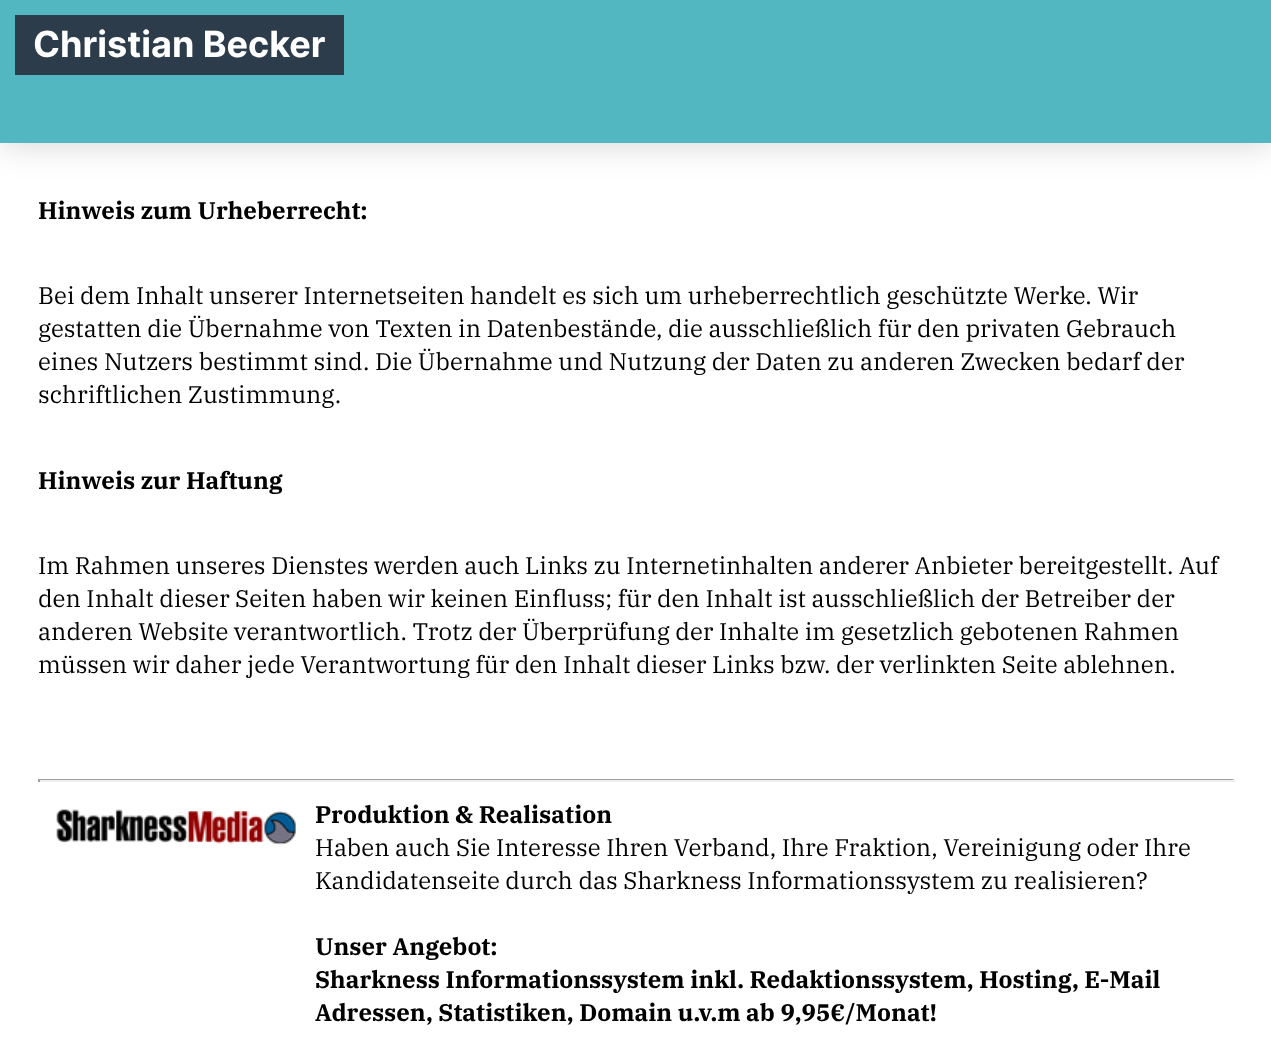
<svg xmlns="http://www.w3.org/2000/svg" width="1271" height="1052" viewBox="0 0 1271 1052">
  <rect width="100%" height="100%" fill="rgb(255,255,255)"/>
  <rect x="0" y="3" width="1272" height="143" fill="rgba(0,0,0,0.15)" filter="blur(16px)"/>
  <rect x="0" y="0" width="1271" height="143" fill="rgb(82,183,193)"/>
  <rect x="15" y="15" width="329" height="60" fill="rgb(45,60,75)"/>
  <text x="33" y="57" font-family="Inter" font-size="36" font-weight="bold" fill="rgb(255,255,255)">Christian Becker</text>
  <text x="38" y="219" font-family="IBM Plex Serif" font-size="24" font-weight="bold" fill="rgb(0,0,0)">Hinweis zum Urheberrecht:</text>
  <g font-family="IBM Plex Serif" font-size="24" fill="rgb(0,0,0)">
    <text>
      <tspan x="38" y="304">Bei dem Inhalt unserer Internetseiten handelt es sich um urheberrechtlich geschützte Werke. Wir</tspan>
      <tspan x="38" y="337">gestatten die Übernahme von Texten in Datenbestände, die ausschließlich für den privaten Gebrauch</tspan>
      <tspan x="38" y="370">eines Nutzers bestimmt sind. Die Übernahme und Nutzung der Daten zu anderen Zwecken bedarf der</tspan>
      <tspan x="38" y="403">schriftlichen Zustimmung.</tspan>
    </text>
  </g>
  <text x="38" y="489" font-family="IBM Plex Serif" font-size="24" font-weight="bold" fill="rgb(0,0,0)">Hinweis zur Haftung</text>
  <g font-family="IBM Plex Serif" font-size="24" fill="rgb(0,0,0)">
    <text>
      <tspan x="38" y="574">Im Rahmen unseres Dienstes werden auch Links zu Internetinhalten anderer Anbieter bereitgestellt. Auf</tspan>
      <tspan x="38" y="607">den Inhalt dieser Seiten haben wir keinen Einfluss; für den Inhalt ist ausschließlich der Betreiber der</tspan>
      <tspan x="38" y="640">anderen Website verantwortlich. Trotz der Überprüfung der Inhalte im gesetzlich gebotenen Rahmen</tspan>
      <tspan x="38" y="673">müssen wir daher jede Verantwortung für den Inhalt dieser Links bzw. der verlinkten Seite ablehnen.</tspan>
    </text>
  </g>
  <rect x="38" y="779" width="1197" height="1" fill="rgb(159,159,159)"/>
  <rect x="1233" y="779" width="2" height="3" fill="rgb(238,238,238)"/>
  <rect x="38" y="780" width="1197" height="2" fill="rgb(238,238,238)"/>
  <rect x="38" y="779" width="2" height="3" fill="rgb(159,159,159)"/>
  <image x="56" y="809" width="240" height="36" href="pic1.png"/>
  <text x="315" y="823" font-family="IBM Plex Serif" font-size="24" font-weight="bold" fill="rgb(0,0,0)">Produktion &amp; Realisation</text>
  <g font-family="IBM Plex Serif" font-size="24" fill="rgb(0,0,0)">
    <text>
      <tspan x="315" y="856">Haben auch Sie Interesse Ihren Verband, Ihre Fraktion, Vereinigung oder Ihre</tspan>
      <tspan x="315" y="889">Kandidatenseite durch das Sharkness Informationssystem zu realisieren?</tspan>
    </text>
  </g>
  <g font-family="IBM Plex Serif" font-size="24" font-weight="bold" fill="rgb(0,0,0)">
    <text>
      <tspan x="315" y="955">Unser Angebot:</tspan>
      <tspan x="315" y="988">Sharkness Informationssystem inkl. Redaktionssystem, Hosting, E-Mail</tspan>
      <tspan x="315" y="1021">Adressen, Statistiken, Domain u.v.m ab 9,95€/Monat!</tspan>
    </text>
  </g>
</svg>
